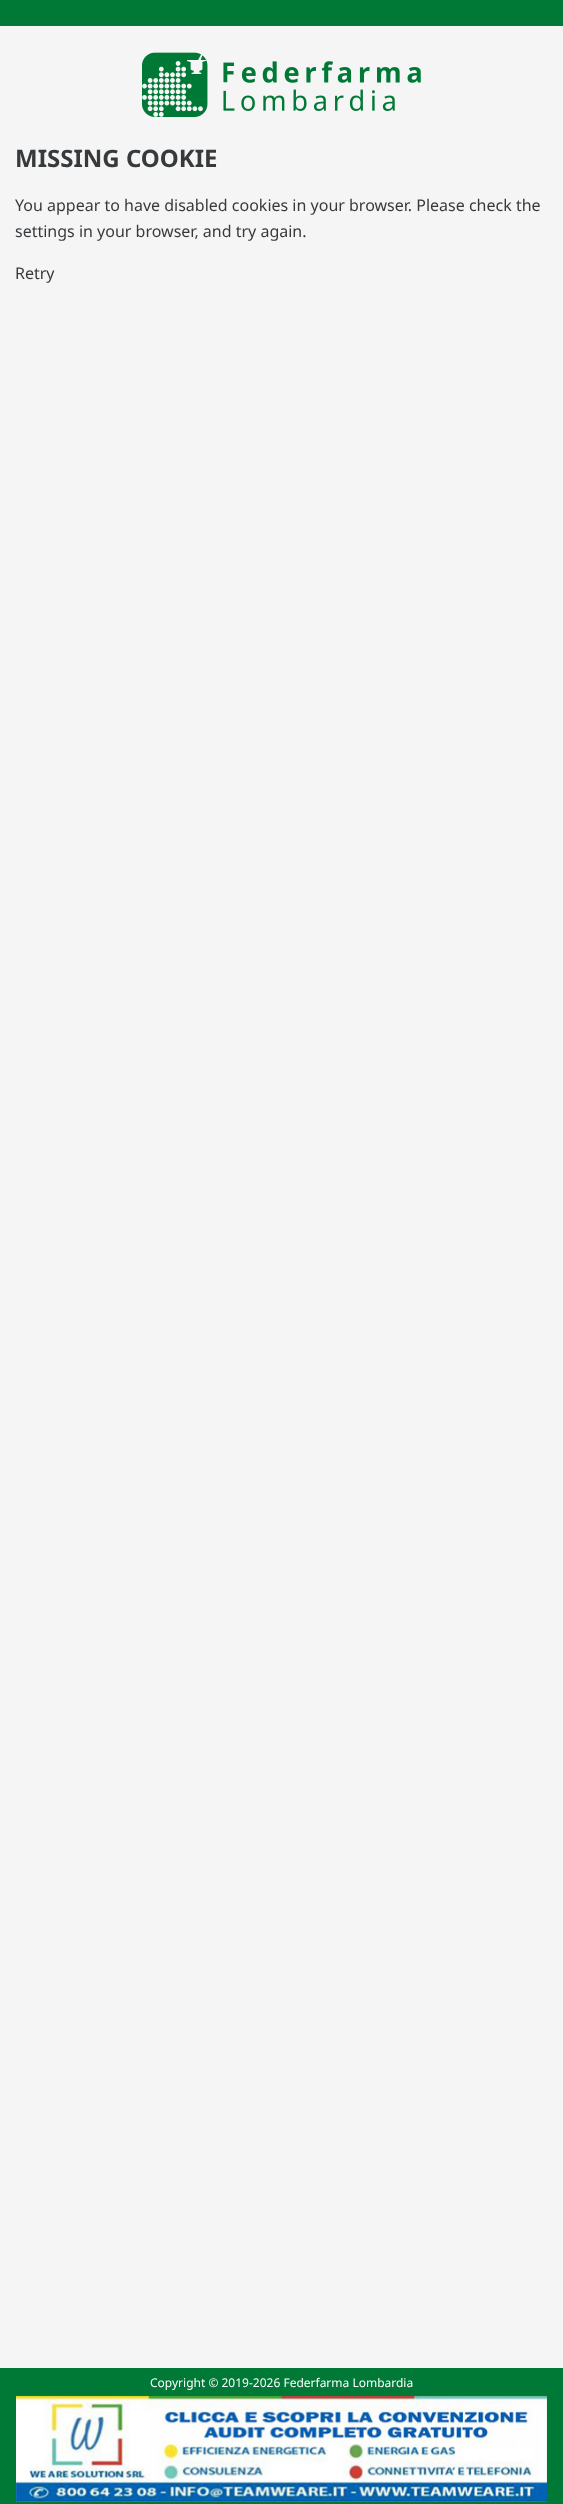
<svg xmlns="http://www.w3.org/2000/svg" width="563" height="2504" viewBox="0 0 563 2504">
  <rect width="100%" height="100%" fill="rgb(245,245,245)"/>
  <rect x="0" y="0" width="563" height="26" fill="rgb(0,120,54)"/>
  <image x="142" y="52" width="279" height="65" href="pic1.png"/>
  <text x="15" y="167" font-family="Noto Sans" font-size="24" font-weight="bold" fill="rgb(55,58,60)">MISSING COOKIE</text>
  <g font-family="Noto Sans" font-size="16" fill="rgb(55,58,60)">
    <text>
      <tspan x="15" y="211">You appear to have disabled cookies in your browser. Please check the</tspan>
      <tspan x="15" y="237">settings in your browser, and try again.</tspan>
    </text>
    <text x="15" y="279">Retry</text>
  </g>
  <rect x="0" y="2368" width="563" height="136" fill="rgb(0,120,54)"/>
  <text x="150" y="2387" font-family="Noto Sans" font-size="12" fill="rgb(255,255,255)">Copyright © 2019-2026 Federfarma Lombardia</text>
  <image x="16" y="2395" width="531" height="107" href="pic2.png"/>
</svg>
